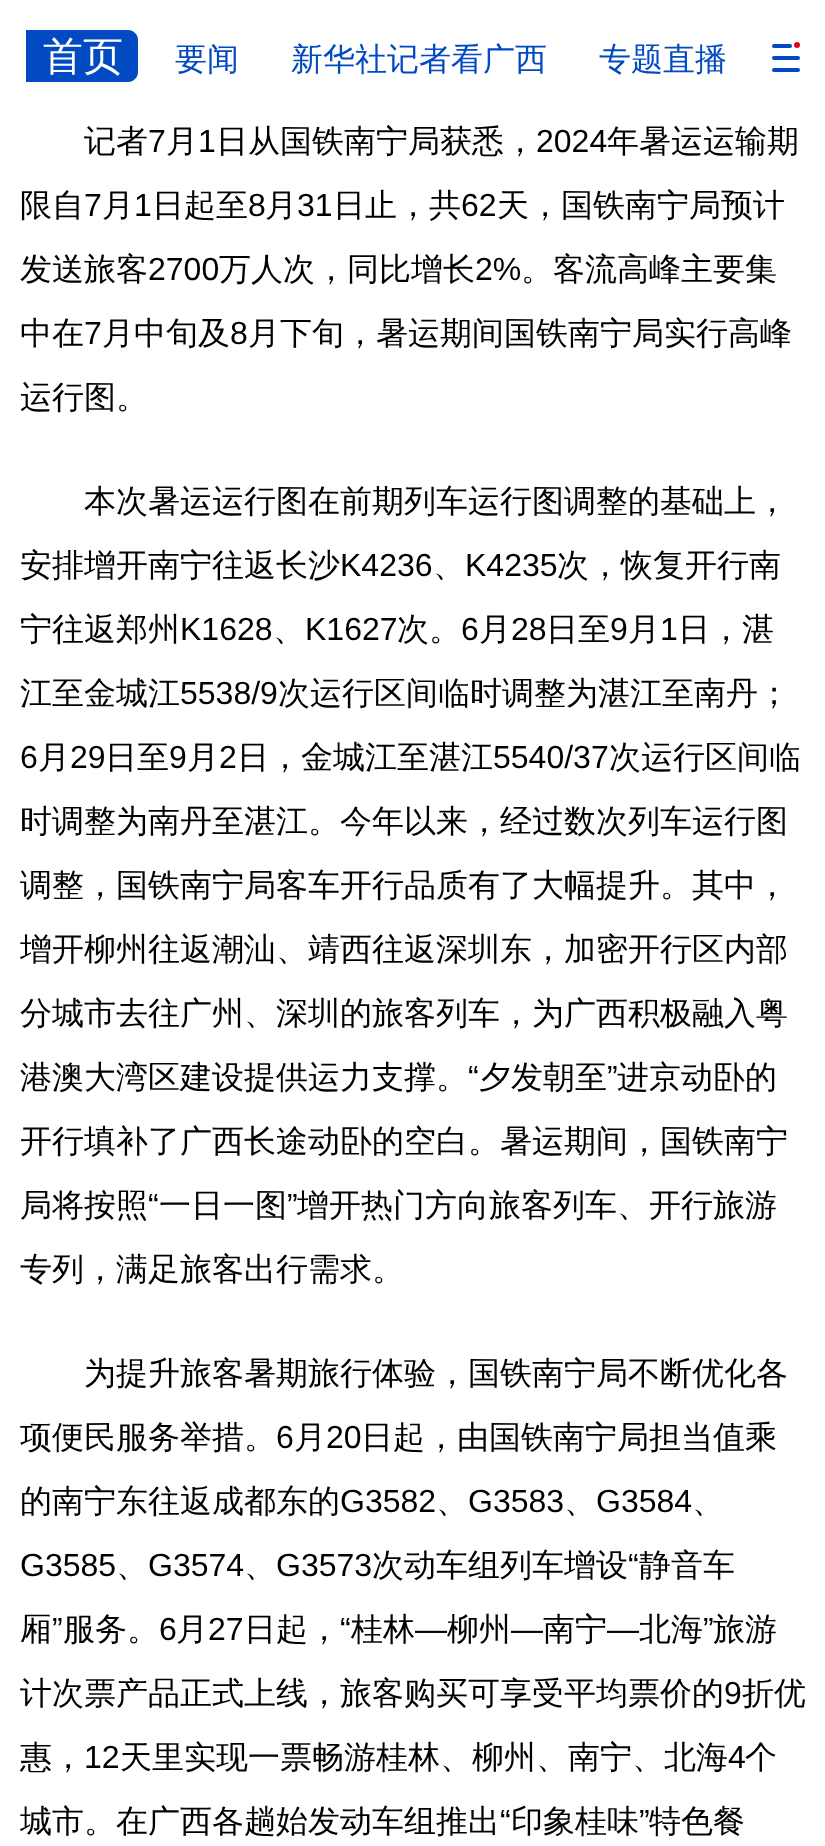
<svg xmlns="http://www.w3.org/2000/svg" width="825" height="1846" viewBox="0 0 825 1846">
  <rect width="100%" height="100%" fill="rgb(255,255,255)"/>
  <path d="M26 30H128C133.5 30 138 34.5 138 40V72C138 77.5 133.5 82 128 82H26Z" fill="rgb(2,74,194)"/>
  <text x="43" y="70" font-family="WenQuanYi Zen Hei" font-size="40" font-weight="500" fill="rgb(255,255,255)">首页</text>
  <g font-family="WenQuanYi Zen Hei" font-size="32" font-weight="500" fill="rgb(2,74,194)">
    <text x="175" y="70">要闻</text>
    <text x="291" y="70">新华社记者看广西</text>
    <text x="599" y="70">专题直播</text>
  </g>
  <rect x="772" y="44" width="20" height="4" rx="2" fill="rgb(2,74,194)"/>
  <circle cx="797" cy="45" r="3" fill="rgb(229,0,32)"/>
  <rect x="772" y="56" width="28" height="4" rx="2" fill="rgb(2,74,194)"/>
  <rect x="772" y="68" width="28" height="4" rx="2" fill="rgb(2,74,194)"/>
  <text x="84" y="152" font-family="WenQuanYi Zen Hei" font-size="32" font-weight="500" fill="rgb(0,0,0)">记者</text>
  <text x="148" y="152" font-family="Liberation Sans" font-size="32" fill="rgb(0,0,0)">7</text>
  <text x="166" y="152" font-family="WenQuanYi Zen Hei" font-size="32" font-weight="500" fill="rgb(0,0,0)">月</text>
  <text x="198" y="152" font-family="Liberation Sans" font-size="32" fill="rgb(0,0,0)">1</text>
  <text x="216" y="152" font-family="WenQuanYi Zen Hei" font-size="32" font-weight="500" fill="rgb(0,0,0)">日从国铁南宁局获悉，</text>
  <text x="536" y="152" font-family="Liberation Sans" font-size="32" fill="rgb(0,0,0)">2024</text>
  <g font-family="WenQuanYi Zen Hei" font-size="32" font-weight="500" fill="rgb(0,0,0)">
    <text x="607" y="152">年暑运运输期</text>
    <text x="20" y="216">限自</text>
  </g>
  <text x="84" y="216" font-family="Liberation Sans" font-size="32" fill="rgb(0,0,0)">7</text>
  <text x="102" y="216" font-family="WenQuanYi Zen Hei" font-size="32" font-weight="500" fill="rgb(0,0,0)">月</text>
  <text x="134" y="216" font-family="Liberation Sans" font-size="32" fill="rgb(0,0,0)">1</text>
  <text x="152" y="216" font-family="WenQuanYi Zen Hei" font-size="32" font-weight="500" fill="rgb(0,0,0)">日起至</text>
  <text x="248" y="216" font-family="Liberation Sans" font-size="32" fill="rgb(0,0,0)">8</text>
  <text x="265" y="216" font-family="WenQuanYi Zen Hei" font-size="32" font-weight="500" fill="rgb(0,0,0)">月</text>
  <text x="297" y="216" font-family="Liberation Sans" font-size="32" fill="rgb(0,0,0)">31</text>
  <text x="333" y="216" font-family="WenQuanYi Zen Hei" font-size="32" font-weight="500" fill="rgb(0,0,0)">日止，共</text>
  <text x="461" y="216" font-family="Liberation Sans" font-size="32" fill="rgb(0,0,0)">62</text>
  <g font-family="WenQuanYi Zen Hei" font-size="32" font-weight="500" fill="rgb(0,0,0)">
    <text x="497" y="216">天，国铁南宁局预计</text>
    <text x="20" y="280">发送旅客</text>
  </g>
  <text x="148" y="280" font-family="Liberation Sans" font-size="32" fill="rgb(0,0,0)">2700</text>
  <text x="219" y="280" font-family="WenQuanYi Zen Hei" font-size="32" font-weight="500" fill="rgb(0,0,0)">万人次，同比增长</text>
  <text x="475" y="280" font-family="Liberation Sans" font-size="32" fill="rgb(0,0,0)">2%</text>
  <g font-family="WenQuanYi Zen Hei" font-size="32" font-weight="500" fill="rgb(0,0,0)">
    <text x="521" y="280">。客流高峰主要集</text>
    <text x="20" y="344">中在</text>
  </g>
  <text x="84" y="344" font-family="Liberation Sans" font-size="32" fill="rgb(0,0,0)">7</text>
  <text x="102" y="344" font-family="WenQuanYi Zen Hei" font-size="32" font-weight="500" fill="rgb(0,0,0)">月中旬及</text>
  <text x="230" y="344" font-family="Liberation Sans" font-size="32" fill="rgb(0,0,0)">8</text>
  <g font-family="WenQuanYi Zen Hei" font-size="32" font-weight="500" fill="rgb(0,0,0)">
    <text x="248" y="344">月下旬，暑运期间国铁南宁局实行高峰</text>
    <text x="20" y="408">运行图。</text>
    <text x="84" y="512">本次暑运运行图在前期列车运行图调整的基础上，</text>
    <text x="20" y="576">安排增开南宁往返长沙</text>
  </g>
  <text x="340" y="576" font-family="Liberation Sans" font-size="32" fill="rgb(0,0,0)">K4236</text>
  <text x="433" y="576" font-family="WenQuanYi Zen Hei" font-size="32" font-weight="500" fill="rgb(0,0,0)">、</text>
  <text x="465" y="576" font-family="Liberation Sans" font-size="32" fill="rgb(0,0,0)">K4235</text>
  <g font-family="WenQuanYi Zen Hei" font-size="32" font-weight="500" fill="rgb(0,0,0)">
    <text x="557" y="576">次，恢复开行南</text>
    <text x="20" y="640">宁往返郑州</text>
  </g>
  <text x="180" y="640" font-family="Liberation Sans" font-size="32" fill="rgb(0,0,0)">K1628</text>
  <text x="273" y="640" font-family="WenQuanYi Zen Hei" font-size="32" font-weight="500" fill="rgb(0,0,0)">、</text>
  <text x="305" y="640" font-family="Liberation Sans" font-size="32" fill="rgb(0,0,0)">K1627</text>
  <text x="397" y="640" font-family="WenQuanYi Zen Hei" font-size="32" font-weight="500" fill="rgb(0,0,0)">次。</text>
  <text x="461" y="640" font-family="Liberation Sans" font-size="32" fill="rgb(0,0,0)">6</text>
  <text x="479" y="640" font-family="WenQuanYi Zen Hei" font-size="32" font-weight="500" fill="rgb(0,0,0)">月</text>
  <text x="511" y="640" font-family="Liberation Sans" font-size="32" fill="rgb(0,0,0)">28</text>
  <text x="546" y="640" font-family="WenQuanYi Zen Hei" font-size="32" font-weight="500" fill="rgb(0,0,0)">日至</text>
  <text x="610" y="640" font-family="Liberation Sans" font-size="32" fill="rgb(0,0,0)">9</text>
  <text x="628" y="640" font-family="WenQuanYi Zen Hei" font-size="32" font-weight="500" fill="rgb(0,0,0)">月</text>
  <text x="660" y="640" font-family="Liberation Sans" font-size="32" fill="rgb(0,0,0)">1</text>
  <g font-family="WenQuanYi Zen Hei" font-size="32" font-weight="500" fill="rgb(0,0,0)">
    <text x="678" y="640">日，湛</text>
    <text x="20" y="704">江至金城江</text>
  </g>
  <text x="180" y="704" font-family="Liberation Sans" font-size="32" fill="rgb(0,0,0)">5538/9</text>
  <text x="278" y="704" font-family="WenQuanYi Zen Hei" font-size="32" font-weight="500" fill="rgb(0,0,0)">次运行区间临时调整为湛江至南丹；</text>
  <text x="20" y="768" font-family="Liberation Sans" font-size="32" fill="rgb(0,0,0)">6</text>
  <text x="38" y="768" font-family="WenQuanYi Zen Hei" font-size="32" font-weight="500" fill="rgb(0,0,0)">月</text>
  <text x="70" y="768" font-family="Liberation Sans" font-size="32" fill="rgb(0,0,0)">29</text>
  <text x="105" y="768" font-family="WenQuanYi Zen Hei" font-size="32" font-weight="500" fill="rgb(0,0,0)">日至</text>
  <text x="169" y="768" font-family="Liberation Sans" font-size="32" fill="rgb(0,0,0)">9</text>
  <text x="187" y="768" font-family="WenQuanYi Zen Hei" font-size="32" font-weight="500" fill="rgb(0,0,0)">月</text>
  <text x="219" y="768" font-family="Liberation Sans" font-size="32" fill="rgb(0,0,0)">2</text>
  <text x="237" y="768" font-family="WenQuanYi Zen Hei" font-size="32" font-weight="500" fill="rgb(0,0,0)">日，金城江至湛江</text>
  <text x="493" y="768" font-family="Liberation Sans" font-size="32" fill="rgb(0,0,0)">5540/37</text>
  <g font-family="WenQuanYi Zen Hei" font-size="32" font-weight="500" fill="rgb(0,0,0)">
    <text x="609" y="768">次运行区间临</text>
    <text x="20" y="832">时调整为南丹至湛江。今年以来，经过数次列车运行图</text>
    <text x="20" y="896">调整，国铁南宁局客车开行品质有了大幅提升。其中，</text>
    <text x="20" y="960">增开柳州往返潮汕、靖西往返深圳东，加密开行区内部</text>
    <text x="20" y="1024">分城市去往广州、深圳的旅客列车，为广西积极融入粤</text>
    <text x="20" y="1088">港澳大湾区建设提供运力支撑。</text>
  </g>
  <text x="468" y="1088" font-family="Liberation Sans" font-size="32" fill="rgb(0,0,0)">“</text>
  <text x="479" y="1088" font-family="WenQuanYi Zen Hei" font-size="32" font-weight="500" fill="rgb(0,0,0)">夕发朝至</text>
  <text x="607" y="1088" font-family="Liberation Sans" font-size="32" fill="rgb(0,0,0)">”</text>
  <g font-family="WenQuanYi Zen Hei" font-size="32" font-weight="500" fill="rgb(0,0,0)">
    <text x="617" y="1088">进京动卧的</text>
    <text x="20" y="1152">开行填补了广西长途动卧的空白。暑运期间，国铁南宁</text>
    <text x="20" y="1216">局将按照</text>
  </g>
  <text x="148" y="1216" font-family="Liberation Sans" font-size="32" fill="rgb(0,0,0)">“</text>
  <text x="159" y="1216" font-family="WenQuanYi Zen Hei" font-size="32" font-weight="500" fill="rgb(0,0,0)">一日一图</text>
  <text x="287" y="1216" font-family="Liberation Sans" font-size="32" fill="rgb(0,0,0)">”</text>
  <g font-family="WenQuanYi Zen Hei" font-size="32" font-weight="500" fill="rgb(0,0,0)">
    <text x="297" y="1216">增开热门方向旅客列车、开行旅游</text>
    <text x="20" y="1280">专列，满足旅客出行需求。</text>
    <text x="84" y="1384">为提升旅客暑期旅行体验，国铁南宁局不断优化各</text>
    <text x="20" y="1448">项便民服务举措。</text>
  </g>
  <text x="276" y="1448" font-family="Liberation Sans" font-size="32" fill="rgb(0,0,0)">6</text>
  <text x="294" y="1448" font-family="WenQuanYi Zen Hei" font-size="32" font-weight="500" fill="rgb(0,0,0)">月</text>
  <text x="326" y="1448" font-family="Liberation Sans" font-size="32" fill="rgb(0,0,0)">20</text>
  <g font-family="WenQuanYi Zen Hei" font-size="32" font-weight="500" fill="rgb(0,0,0)">
    <text x="361" y="1448">日起，由国铁南宁局担当值乘</text>
    <text x="20" y="1512">的南宁东往返成都东的</text>
  </g>
  <text x="340" y="1512" font-family="Liberation Sans" font-size="32" fill="rgb(0,0,0)">G3582</text>
  <text x="436" y="1512" font-family="WenQuanYi Zen Hei" font-size="32" font-weight="500" fill="rgb(0,0,0)">、</text>
  <text x="468" y="1512" font-family="Liberation Sans" font-size="32" fill="rgb(0,0,0)">G3583</text>
  <text x="564" y="1512" font-family="WenQuanYi Zen Hei" font-size="32" font-weight="500" fill="rgb(0,0,0)">、</text>
  <text x="596" y="1512" font-family="Liberation Sans" font-size="32" fill="rgb(0,0,0)">G3584</text>
  <text x="692" y="1512" font-family="WenQuanYi Zen Hei" font-size="32" font-weight="500" fill="rgb(0,0,0)">、</text>
  <g font-family="Liberation Sans" font-size="32" fill="rgb(0,0,0)">
    <text x="20" y="1576">G3585</text>
    <text x="148" y="1576">G3574</text>
    <text x="276" y="1576">G3573</text>
  </g>
  <text x="372" y="1576" font-family="WenQuanYi Zen Hei" font-size="32" font-weight="500" fill="rgb(0,0,0)">次动车组列车增设</text>
  <text x="628" y="1576" font-family="Liberation Sans" font-size="32" fill="rgb(0,0,0)">“</text>
  <g font-family="WenQuanYi Zen Hei" font-size="32" font-weight="500" fill="rgb(0,0,0)">
    <text x="639" y="1576">静音车</text>
    <text x="116" y="1576">、</text>
    <text x="244" y="1576">、</text>
    <text x="20" y="1640">厢</text>
  </g>
  <text x="52" y="1640" font-family="Liberation Sans" font-size="32" fill="rgb(0,0,0)">”</text>
  <text x="63" y="1640" font-family="WenQuanYi Zen Hei" font-size="32" font-weight="500" fill="rgb(0,0,0)">服务。</text>
  <text x="159" y="1640" font-family="Liberation Sans" font-size="32" fill="rgb(0,0,0)">6</text>
  <text x="176" y="1640" font-family="WenQuanYi Zen Hei" font-size="32" font-weight="500" fill="rgb(0,0,0)">月</text>
  <text x="208" y="1640" font-family="Liberation Sans" font-size="32" fill="rgb(0,0,0)">27</text>
  <text x="244" y="1640" font-family="WenQuanYi Zen Hei" font-size="32" font-weight="500" fill="rgb(0,0,0)">日起，</text>
  <text x="340" y="1640" font-family="Liberation Sans" font-size="32" fill="rgb(0,0,0)">“</text>
  <text x="351" y="1640" font-family="WenQuanYi Zen Hei" font-size="32" font-weight="500" fill="rgb(0,0,0)">桂林</text>
  <text x="415" y="1640" font-family="Liberation Sans" font-size="32" fill="rgb(0,0,0)">—</text>
  <g font-family="WenQuanYi Zen Hei" font-size="32" font-weight="500" fill="rgb(0,0,0)">
    <text x="447" y="1640">柳州</text>
    <text x="543" y="1640">南宁</text>
    <text x="639" y="1640">北海</text>
  </g>
  <text x="703" y="1640" font-family="Liberation Sans" font-size="32" fill="rgb(0,0,0)">”</text>
  <text x="713" y="1640" font-family="WenQuanYi Zen Hei" font-size="32" font-weight="500" fill="rgb(0,0,0)">旅游</text>
  <g font-family="Liberation Sans" font-size="32" fill="rgb(0,0,0)">
    <text x="511" y="1640">—</text>
    <text x="607" y="1640">—</text>
  </g>
  <text x="20" y="1704" font-family="WenQuanYi Zen Hei" font-size="32" font-weight="500" fill="rgb(0,0,0)">计次票产品正式上线，旅客购买可享受平均票价的</text>
  <text x="724" y="1704" font-family="Liberation Sans" font-size="32" fill="rgb(0,0,0)">9</text>
  <g font-family="WenQuanYi Zen Hei" font-size="32" font-weight="500" fill="rgb(0,0,0)">
    <text x="742" y="1704">折优</text>
    <text x="20" y="1768">惠，</text>
  </g>
  <text x="84" y="1768" font-family="Liberation Sans" font-size="32" fill="rgb(0,0,0)">12</text>
  <text x="120" y="1768" font-family="WenQuanYi Zen Hei" font-size="32" font-weight="500" fill="rgb(0,0,0)">天里实现一票畅游桂林、柳州、南宁、北海</text>
  <text x="728" y="1768" font-family="Liberation Sans" font-size="32" fill="rgb(0,0,0)">4</text>
  <g font-family="WenQuanYi Zen Hei" font-size="32" font-weight="500" fill="rgb(0,0,0)">
    <text x="745" y="1768">个</text>
    <text x="20" y="1832">城市。在广西各趟始发动车组推出</text>
  </g>
  <text x="500" y="1832" font-family="Liberation Sans" font-size="32" fill="rgb(0,0,0)">“</text>
  <text x="511" y="1832" font-family="WenQuanYi Zen Hei" font-size="32" font-weight="500" fill="rgb(0,0,0)">印象桂味</text>
  <text x="639" y="1832" font-family="Liberation Sans" font-size="32" fill="rgb(0,0,0)">”</text>
  <text x="649" y="1832" font-family="WenQuanYi Zen Hei" font-size="32" font-weight="500" fill="rgb(0,0,0)">特色餐</text>
</svg>
